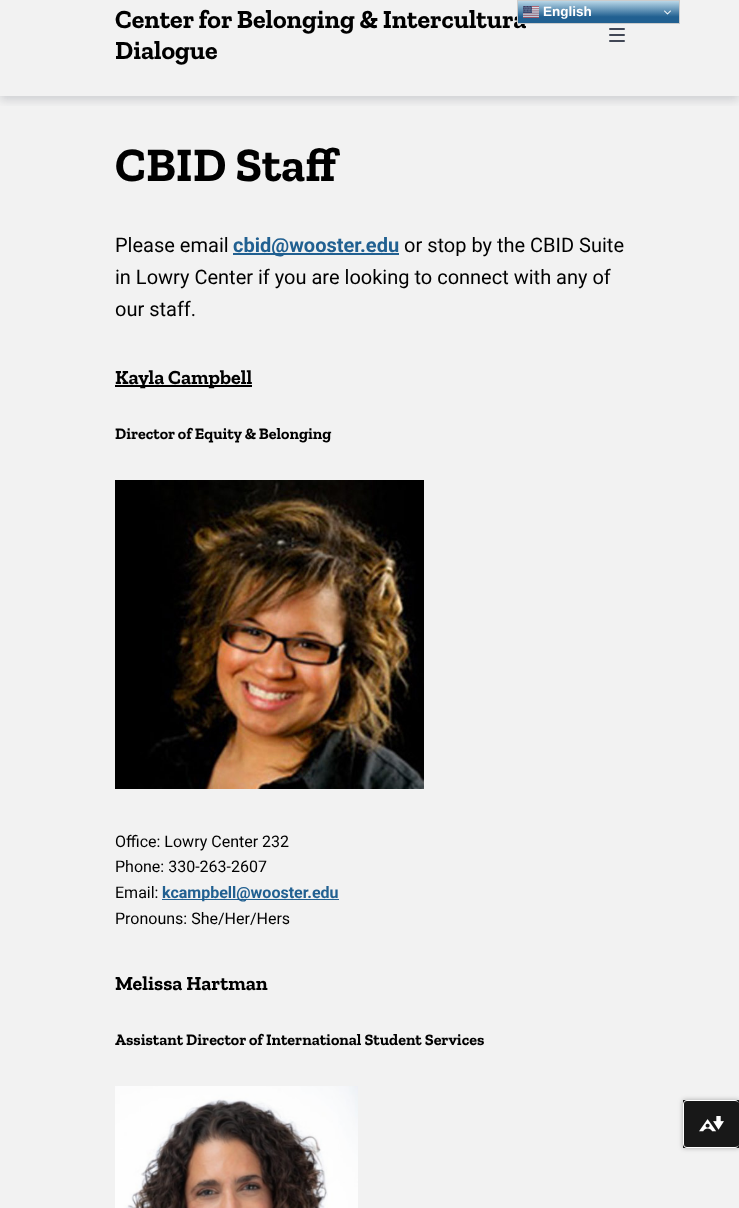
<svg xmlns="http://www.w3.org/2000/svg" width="739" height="1208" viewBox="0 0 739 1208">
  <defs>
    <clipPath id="clip1"><rect x="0" y="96" width="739" height="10"/></clipPath>
    <linearGradient id="g1" gradientUnits="userSpaceOnUse" x1="599" y1="0" x2="599" y2="24"><stop offset="0" stop-color="rgb(194,222,237)"/><stop offset="0.7" stop-color="rgb(33,96,145)"/></linearGradient>
  </defs>
  <rect width="100%" height="100%" fill="rgb(242,242,242)"/>
  <g clip-path="url(#clip1)">
    <rect x="0" y="-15" width="739" height="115" fill="rgba(65,71,86,0.2)" filter="blur(5px)"/>
  </g>
  <text x="115" y="28" font-family="Zilla Slab" font-size="26" font-weight="bold" fill="rgb(0,0,0)">Center for Belonging &amp; Intercultura</text>
  <rect x="518" y="1" width="161" height="22" fill="url(#g1)"/>
  <rect x="517.5" y="0.5" width="162" height="23" fill="none" stroke="rgb(204,204,204)"/>
  <image x="523" y="6" width="16" height="12" href="pic1.png"/>
  <text x="543" y="16" font-family="Liberation Sans" font-size="13.5" font-weight="bold" fill="rgb(255,255,255)">English</text>
  <image x="664" y="10" width="7" height="5" href="pic2.png"/>
  <text x="115" y="59" font-family="Zilla Slab" font-size="26" font-weight="bold" fill="rgb(0,0,0)">Dialogue</text>
  <rect x="609" y="34" width="16" height="2" rx="1" fill="rgb(65,71,86)"/>
  <rect x="609" y="28" width="16" height="2" rx="1" fill="rgb(65,71,86)"/>
  <rect x="609" y="40" width="16" height="2" rx="1" fill="rgb(65,71,86)"/>
  <text x="115" y="181" font-family="Zilla Slab" font-size="48" font-weight="bold" fill="rgb(0,0,0)">CBID Staff</text>
  <text x="115" y="252" font-family="Roboto" font-size="20" fill="rgb(0,0,0)">Please email</text>
  <rect x="233" y="253" width="166" height="2" fill="rgb(33,96,145)"/>
  <text x="233" y="252" font-family="Roboto" font-size="20" font-weight="bold" fill="rgb(33,96,145)">cbid@wooster.edu</text>
  <g font-family="Roboto" font-size="20" fill="rgb(0,0,0)">
    <text x="404" y="252">or stop by the CBID Suite</text>
    <text>
      <tspan x="115" y="284">in Lowry Center if you are looking to connect with any of</tspan>
      <tspan x="115" y="316">our staff.</tspan>
    </text>
  </g>
  <rect x="115" y="385" width="137" height="2" fill="rgb(0,0,0)"/>
  <text x="115" y="384" font-family="Zilla Slab" font-size="20" font-weight="bold" fill="rgb(0,0,0)">Kayla Campbell</text>
  <text x="115" y="439" font-family="Zilla Slab" font-size="16" font-weight="bold" fill="rgb(0,0,0)">Director of Equity &amp; Belonging</text>
  <image x="115" y="480" width="309" height="309" href="pic3.png"/>
  <g font-family="Roboto" font-size="16" fill="rgb(0,0,0)">
    <text>
      <tspan x="115" y="847">Office: Lowry Center 232</tspan>
      <tspan x="115" y="872">Phone: 330-263-2607</tspan>
      <tspan x="115" y="898">Email:</tspan>
    </text>
  </g>
  <rect x="162" y="899" width="177" height="1" fill="rgb(33,96,145)"/>
  <text x="162" y="898" font-family="Roboto" font-size="16" font-weight="bold" fill="rgb(33,96,145)">kcampbell@wooster.edu</text>
  <text x="115" y="924" font-family="Roboto" font-size="16" fill="rgb(0,0,0)">Pronouns: She/Her/Hers</text>
  <text x="115" y="990" font-family="Zilla Slab" font-size="20" font-weight="bold" fill="rgb(0,0,0)">Melissa Hartman</text>
  <text x="115" y="1045" font-family="Zilla Slab" font-size="16" font-weight="bold" fill="rgb(0,0,0)">Assistant Director of International Student Services</text>
  <image x="115" y="1086" width="243" height="122" href="pic4.png"/>
  <rect x="683" y="1100" width="56" height="48" fill="rgba(0,0,0,0.3)" filter="blur(2.5px)"/>
  <rect x="683" y="1100" width="56" height="48" fill="rgb(24,24,24)"/>
  <path d="M687 1100H735C737 1100 739 1102 739 1104V1144C739 1146 737 1148 735 1148H687C685 1148 683 1146 683 1144V1104C683 1102 685 1100 687 1100ZM687 1101H735C737 1101 739 1102 739 1104V1144C739 1146 737 1147 735 1147H687C685 1147 684 1146 684 1144V1104C684 1102 685 1101 687 1101Z" fill="rgb(255,255,255)" fill-rule="evenodd"/>
  <image x="699" y="1116" width="25" height="16" href="pic5.png"/>
</svg>
